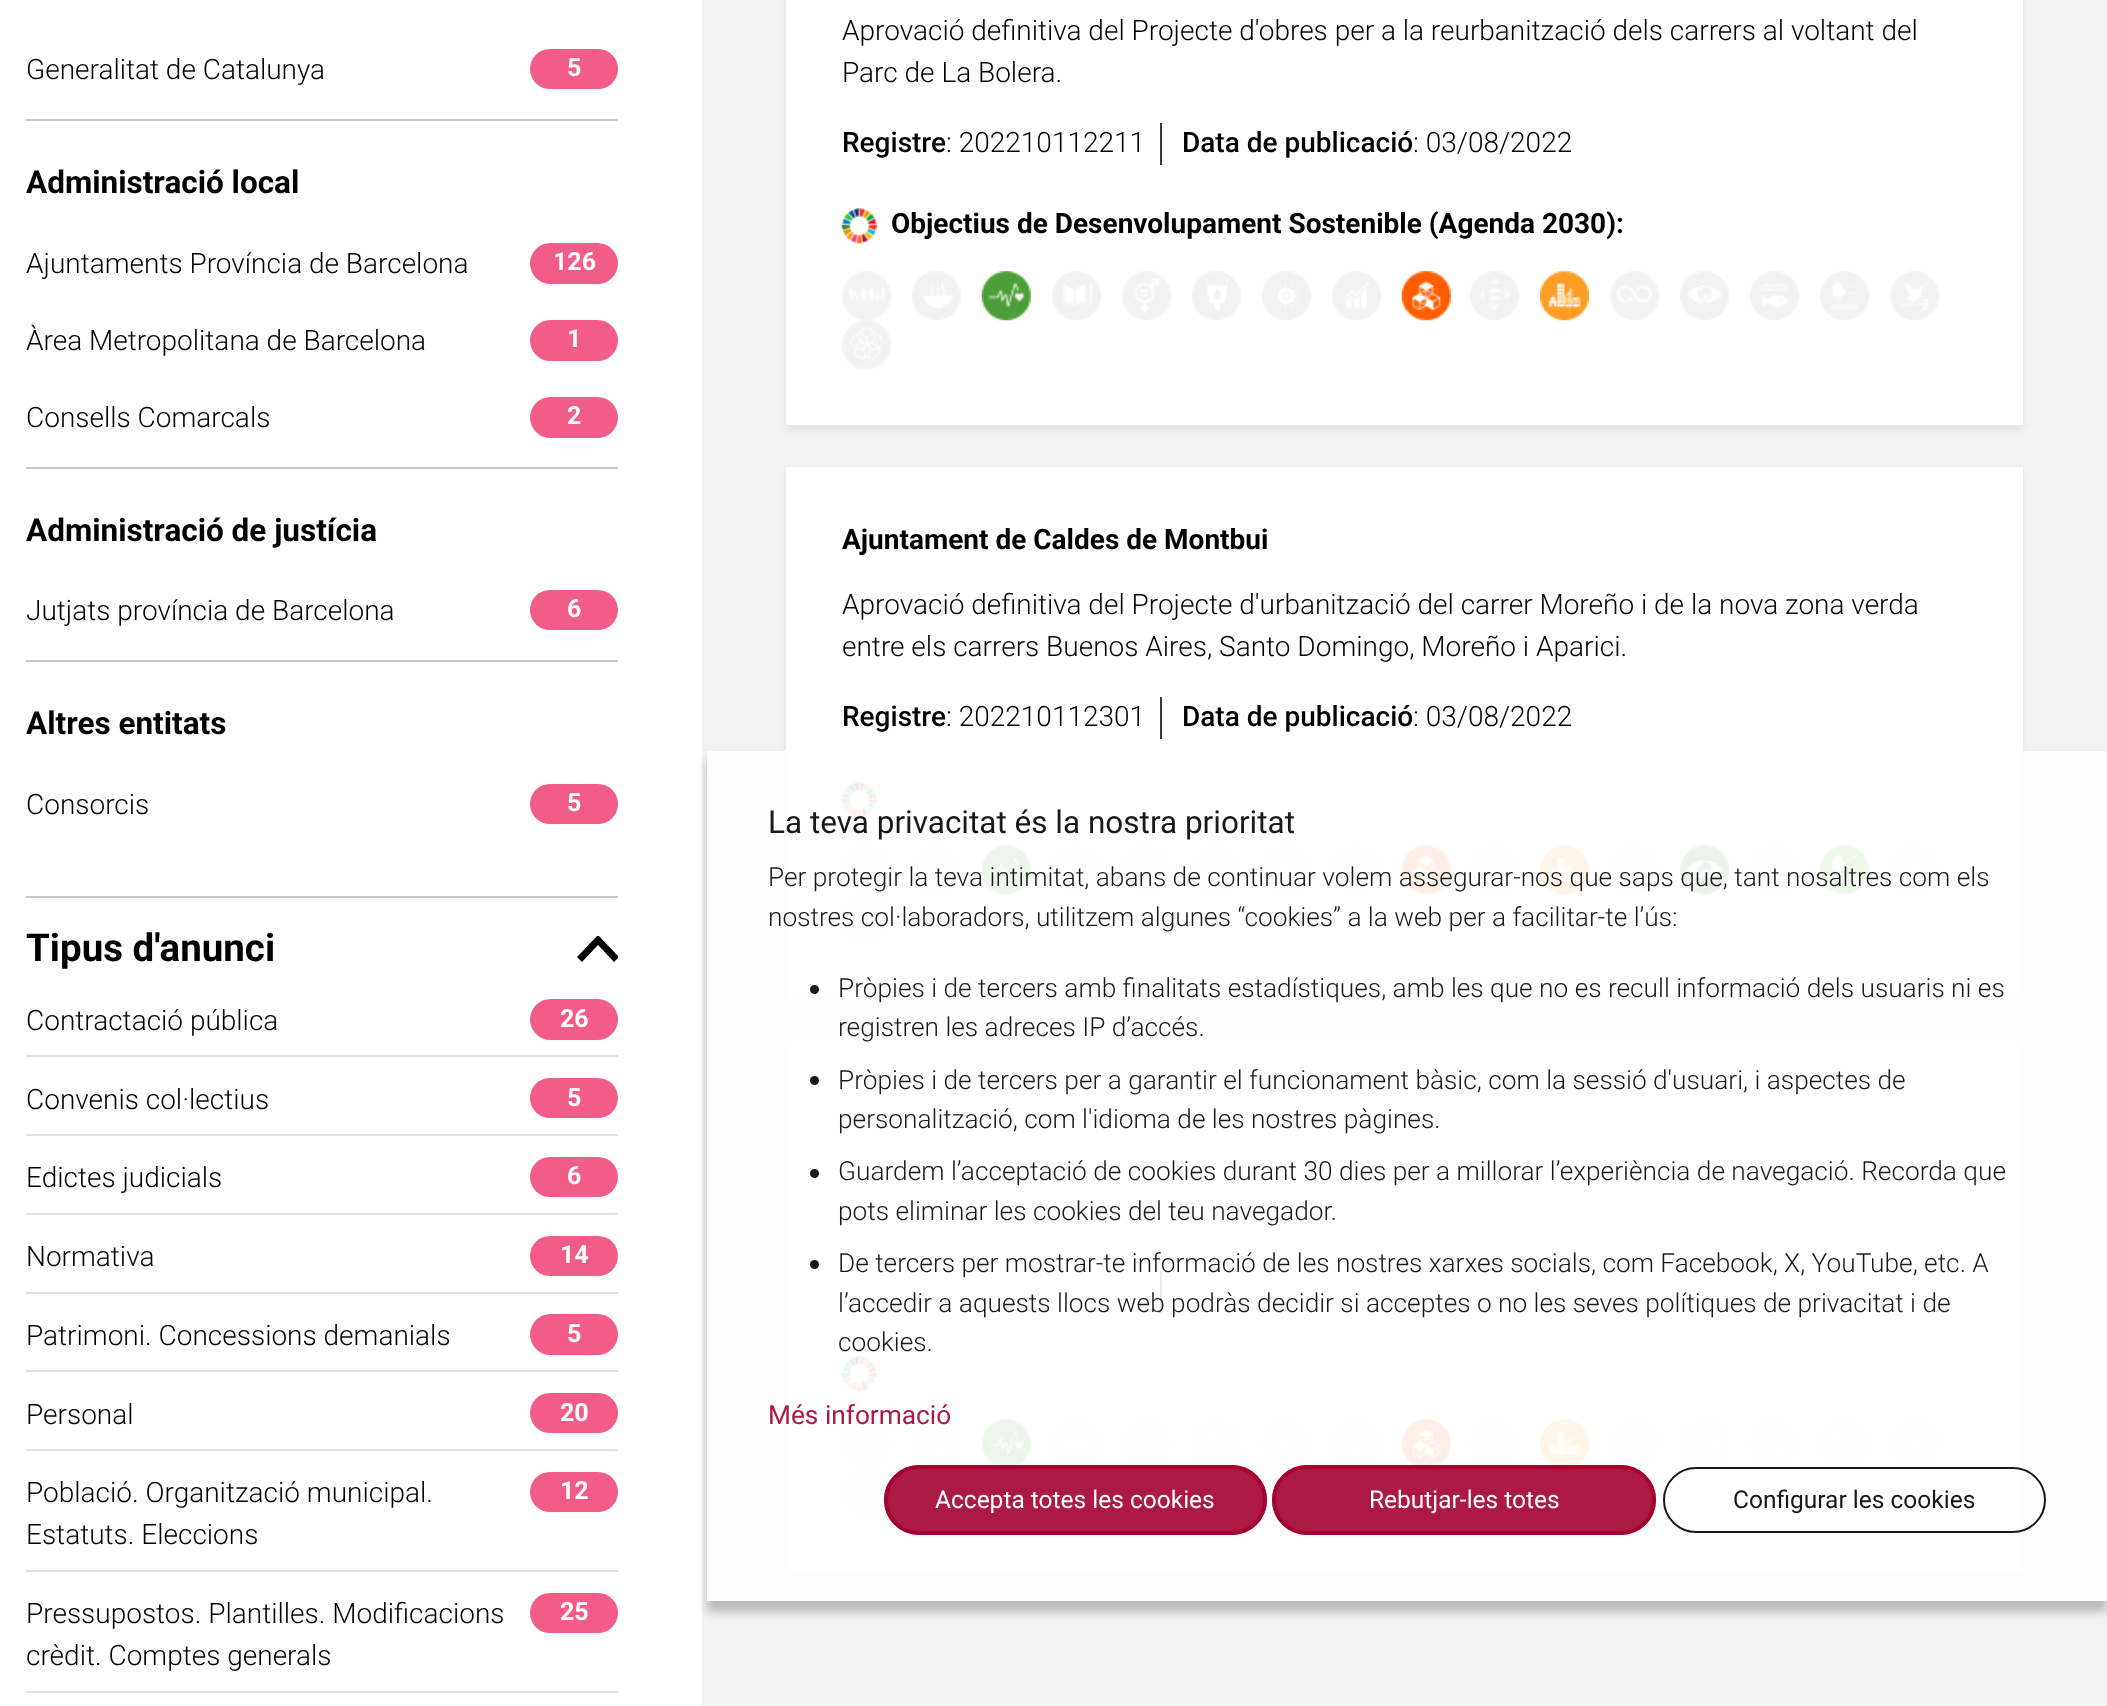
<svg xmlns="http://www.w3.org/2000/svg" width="2107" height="1706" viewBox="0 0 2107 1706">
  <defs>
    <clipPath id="clip1"><rect x="576" y="936" width="42" height="27"/></clipPath>
    <clipPath id="clip2"><path d="M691 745H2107V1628H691ZM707 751H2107V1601H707Z" clip-rule="evenodd"/></clipPath>
  </defs>
  <rect width="100%" height="100%" fill="rgb(255,255,255)"/>
  <rect x="26" y="119" width="592" height="2" fill="rgb(200,200,200)"/>
  <text x="26" y="79" font-family="Roboto" font-size="28" font-weight="300" fill="rgb(0,0,0)">Generalitat de Catalunya</text>
  <rect x="530" y="49" width="88" height="40" rx="20" fill="rgb(241,93,136)"/>
  <text x="567" y="76" font-family="Roboto" font-size="25" font-weight="bold" fill="rgb(255,255,255)">5</text>
  <text x="26" y="193" font-family="Roboto" font-size="31.5" font-weight="bold" fill="rgb(0,0,0)">Administració local</text>
  <rect x="26" y="467" width="592" height="2" fill="rgb(200,200,200)"/>
  <text x="26" y="273" font-family="Roboto" font-size="28" font-weight="300" fill="rgb(0,0,0)">Ajuntaments Província de Barcelona</text>
  <rect x="530" y="243" width="88" height="41" rx="20.5" fill="rgb(241,93,136)"/>
  <text x="553" y="270" font-family="Roboto" font-size="25" font-weight="bold" fill="rgb(255,255,255)">126</text>
  <text x="26" y="350" font-family="Roboto" font-size="28" font-weight="300" fill="rgb(0,0,0)">Àrea Metropolitana de Barcelona</text>
  <rect x="530" y="320" width="88" height="41" rx="20.5" fill="rgb(241,93,136)"/>
  <text x="567" y="347" font-family="Roboto" font-size="25" font-weight="bold" fill="rgb(255,255,255)">1</text>
  <text x="26" y="427" font-family="Roboto" font-size="28" font-weight="300" fill="rgb(0,0,0)">Consells Comarcals</text>
  <rect x="530" y="397" width="88" height="41" rx="20.5" fill="rgb(241,93,136)"/>
  <text x="567" y="424" font-family="Roboto" font-size="25" font-weight="bold" fill="rgb(255,255,255)">2</text>
  <text x="26" y="541" font-family="Roboto" font-size="31.5" font-weight="bold" fill="rgb(0,0,0)">Administració de justícia</text>
  <rect x="26" y="660" width="592" height="2" fill="rgb(200,200,200)"/>
  <text x="26" y="620" font-family="Roboto" font-size="28" font-weight="300" fill="rgb(0,0,0)">Jutjats província de Barcelona</text>
  <rect x="530" y="590" width="88" height="40" rx="20" fill="rgb(241,93,136)"/>
  <text x="567" y="617" font-family="Roboto" font-size="25" font-weight="bold" fill="rgb(255,255,255)">6</text>
  <text x="26" y="734" font-family="Roboto" font-size="31.5" font-weight="bold" fill="rgb(0,0,0)">Altres entitats</text>
  <text x="26" y="814" font-family="Roboto" font-size="28" font-weight="300" fill="rgb(0,0,0)">Consorcis</text>
  <rect x="530" y="784" width="88" height="40" rx="20" fill="rgb(241,93,136)"/>
  <text x="567" y="811" font-family="Roboto" font-size="25" font-weight="bold" fill="rgb(255,255,255)">5</text>
  <rect x="26" y="896" width="592" height="2" fill="rgb(200,200,200)"/>
  <text x="26" y="961" font-family="Roboto" font-size="38.5" font-weight="bold" fill="rgb(0,0,0)">Tipus d'anunci</text>
  <g clip-path="url(#clip1)">
    <path d="M614 962L598 945L582 962L577 957L598 935L619 957Z" fill="rgb(0,0,0)"/>
  </g>
  <rect x="26" y="1055" width="592" height="2" fill="rgb(222,226,230)"/>
  <text x="26" y="1030" font-family="Roboto" font-size="28" font-weight="300" fill="rgb(0,0,0)">Contractació pública</text>
  <rect x="530" y="999" width="88" height="41" rx="20.5" fill="rgb(241,93,136)"/>
  <text x="560" y="1027" font-family="Roboto" font-size="25" font-weight="bold" fill="rgb(255,255,255)">26</text>
  <rect x="26" y="1134" width="592" height="2" fill="rgb(222,226,230)"/>
  <text x="26" y="1109" font-family="Roboto" font-size="28" font-weight="300" fill="rgb(0,0,0)">Convenis col·lectius</text>
  <rect x="530" y="1078" width="88" height="40" rx="20" fill="rgb(241,93,136)"/>
  <text x="567" y="1106" font-family="Roboto" font-size="25" font-weight="bold" fill="rgb(255,255,255)">5</text>
  <rect x="26" y="1213" width="592" height="2" fill="rgb(222,226,230)"/>
  <text x="26" y="1187" font-family="Roboto" font-size="28" font-weight="300" fill="rgb(0,0,0)">Edictes judicials</text>
  <rect x="530" y="1157" width="88" height="40" rx="20" fill="rgb(241,93,136)"/>
  <text x="567" y="1184" font-family="Roboto" font-size="25" font-weight="bold" fill="rgb(255,255,255)">6</text>
  <rect x="26" y="1292" width="592" height="2" fill="rgb(222,226,230)"/>
  <text x="26" y="1266" font-family="Roboto" font-size="28" font-weight="300" fill="rgb(0,0,0)">Normativa</text>
  <rect x="530" y="1236" width="88" height="40" rx="20" fill="rgb(241,93,136)"/>
  <text x="560" y="1263" font-family="Roboto" font-size="25" font-weight="bold" fill="rgb(255,255,255)">14</text>
  <rect x="26" y="1370" width="592" height="2" fill="rgb(222,226,230)"/>
  <text x="26" y="1345" font-family="Roboto" font-size="28" font-weight="300" fill="rgb(0,0,0)">Patrimoni. Concessions demanials</text>
  <rect x="530" y="1314" width="88" height="41" rx="20.5" fill="rgb(241,93,136)"/>
  <text x="567" y="1342" font-family="Roboto" font-size="25" font-weight="bold" fill="rgb(255,255,255)">5</text>
  <rect x="26" y="1449" width="592" height="2" fill="rgb(222,226,230)"/>
  <text x="26" y="1424" font-family="Roboto" font-size="28" font-weight="300" fill="rgb(0,0,0)">Personal</text>
  <rect x="530" y="1393" width="88" height="40" rx="20" fill="rgb(241,93,136)"/>
  <text x="560" y="1421" font-family="Roboto" font-size="25" font-weight="bold" fill="rgb(255,255,255)">20</text>
  <rect x="26" y="1570" width="592" height="2" fill="rgb(222,226,230)"/>
  <text x="26" y="1502" font-family="Roboto" font-size="28" font-weight="300" fill="rgb(0,0,0)">Població. Organització municipal.</text>
  <rect x="530" y="1472" width="88" height="40" rx="20" fill="rgb(241,93,136)"/>
  <text x="560" y="1499" font-family="Roboto" font-size="25" font-weight="bold" fill="rgb(255,255,255)">12</text>
  <text x="26" y="1544" font-family="Roboto" font-size="28" font-weight="300" fill="rgb(0,0,0)">Estatuts. Eleccions</text>
  <rect x="26" y="1691" width="592" height="2" fill="rgb(222,226,230)"/>
  <text x="26" y="1623" font-family="Roboto" font-size="28" font-weight="300" fill="rgb(0,0,0)">Pressupostos. Plantilles. Modificacions</text>
  <rect x="530" y="1593" width="88" height="40" rx="20" fill="rgb(241,93,136)"/>
  <text x="560" y="1620" font-family="Roboto" font-size="25" font-weight="bold" fill="rgb(255,255,255)">25</text>
  <text x="26" y="1665" font-family="Roboto" font-size="28" font-weight="300" fill="rgb(0,0,0)">crèdit. Comptes generals</text>
  <rect x="702" y="0" width="1405" height="1706" fill="rgb(242,242,242)"/>
  <rect x="786" y="-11" width="1237" height="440" fill="rgba(0,0,0,0.07)" filter="blur(3.5px)"/>
  <rect x="786" y="0" width="1237" height="425" fill="rgb(255,255,255)"/>
  <g font-family="Roboto" font-size="28" font-weight="300" fill="rgb(0,0,0)">
    <text>
      <tspan x="842" y="40">Aprovació definitiva del Projecte d'obres per a la reurbanització dels carrers al voltant del</tspan>
      <tspan x="842" y="82">Parc de La Bolera.</tspan>
    </text>
  </g>
  <rect x="1160" y="123" width="2" height="42" fill="rgb(52,58,64)"/>
  <text x="842" y="152" font-family="Roboto" font-size="28" font-weight="500" fill="rgb(0,0,0)">Registre</text>
  <text x="946" y="152" font-family="Roboto" font-size="28" font-weight="300" fill="rgb(0,0,0)">: 202210112211</text>
  <text x="1182" y="152" font-family="Roboto" font-size="28" font-weight="500" fill="rgb(0,0,0)">Data de publicació</text>
  <text x="1413" y="152" font-family="Roboto" font-size="28" font-weight="300" fill="rgb(0,0,0)">: 03/08/2022</text>
  <image x="841" y="208" width="36" height="36" href="pic1.png"/>
  <text x="891" y="233" font-family="Roboto" font-size="28" font-weight="bold" fill="rgb(0,0,0)">Objectius de Desenvolupament Sostenible (Agenda 2030):</text>
  <image x="842" y="271" width="49" height="49" href="pic2.png"/>
  <image x="912" y="271" width="49" height="49" href="pic3.png"/>
  <image x="981" y="271" width="50" height="50" href="pic4.png"/>
  <image x="1052" y="271" width="49" height="49" href="pic5.png"/>
  <image x="1122" y="271" width="49" height="49" href="pic6.png"/>
  <image x="1192" y="271" width="49" height="49" href="pic7.png"/>
  <image x="1262" y="271" width="49" height="49" href="pic8.png"/>
  <image x="1332" y="271" width="49" height="49" href="pic9.png"/>
  <image x="1401" y="271" width="50" height="50" href="pic10.png"/>
  <image x="1470" y="271" width="49" height="49" href="pic11.png"/>
  <image x="1540" y="271" width="49" height="50" href="pic12.png"/>
  <image x="1610" y="271" width="49" height="49" href="pic13.png"/>
  <image x="1680" y="271" width="49" height="49" href="pic14.png"/>
  <image x="1750" y="271" width="49" height="49" href="pic15.png"/>
  <image x="1820" y="271" width="49" height="49" href="pic16.png"/>
  <image x="1890" y="271" width="49" height="49" href="pic17.png"/>
  <image x="842" y="320" width="49" height="49" href="pic18.png"/>
  <rect x="786" y="471" width="1237" height="532" fill="rgba(0,0,0,0.07)" filter="blur(3.5px)"/>
  <rect x="786" y="467" width="1237" height="532" fill="rgb(255,255,255)"/>
  <text x="842" y="549" font-family="Roboto" font-size="28" font-weight="bold" fill="rgb(0,0,0)">Ajuntament de Caldes de Montbui</text>
  <g font-family="Roboto" font-size="28" font-weight="300" fill="rgb(0,0,0)">
    <text>
      <tspan x="842" y="614">Aprovació definitiva del Projecte d'urbanització del carrer Moreño i de la nova zona verda</tspan>
      <tspan x="842" y="656">entre els carrers Buenos Aires, Santo Domingo, Moreño i Aparici.</tspan>
    </text>
  </g>
  <rect x="1160" y="697" width="2" height="42" fill="rgb(52,58,64)"/>
  <text x="842" y="726" font-family="Roboto" font-size="28" font-weight="500" fill="rgb(0,0,0)">Registre</text>
  <text x="946" y="726" font-family="Roboto" font-size="28" font-weight="300" fill="rgb(0,0,0)">: 202210112301</text>
  <text x="1182" y="726" font-family="Roboto" font-size="28" font-weight="500" fill="rgb(0,0,0)">Data de publicació</text>
  <text x="1413" y="726" font-family="Roboto" font-size="28" font-weight="300" fill="rgb(0,0,0)">: 03/08/2022</text>
  <image x="841" y="782" width="36" height="36" href="pic1.png"/>
  <image x="842" y="845" width="49" height="49" href="pic2.png"/>
  <image x="912" y="845" width="49" height="49" href="pic3.png"/>
  <image x="981" y="845" width="50" height="50" href="pic4.png"/>
  <image x="1052" y="845" width="49" height="49" href="pic5.png"/>
  <image x="1122" y="845" width="49" height="49" href="pic6.png"/>
  <image x="1192" y="845" width="49" height="49" href="pic7.png"/>
  <image x="1262" y="845" width="49" height="49" href="pic8.png"/>
  <image x="1332" y="845" width="49" height="49" href="pic9.png"/>
  <image x="1401" y="845" width="50" height="50" href="pic10.png"/>
  <image x="1470" y="845" width="49" height="49" href="pic11.png"/>
  <image x="1540" y="845" width="49" height="50" href="pic12.png"/>
  <image x="1610" y="845" width="49" height="49" href="pic13.png"/>
  <image x="1680" y="845" width="49" height="50" href="pic19.png"/>
  <image x="1750" y="845" width="49" height="49" href="pic15.png"/>
  <image x="1820" y="845" width="49" height="50" href="pic20.png"/>
  <image x="1890" y="845" width="49" height="49" href="pic17.png"/>
  <image x="842" y="894" width="49" height="49" href="pic18.png"/>
  <rect x="786" y="1045" width="1237" height="532" fill="rgba(0,0,0,0.07)" filter="blur(3.5px)"/>
  <rect x="786" y="1041" width="1237" height="532" fill="rgb(255,255,255)"/>
  <rect x="1160" y="1271" width="2" height="42" fill="rgb(52,58,64)"/>
  <image x="841" y="1356" width="36" height="36" href="pic1.png"/>
  <image x="842" y="1419" width="49" height="49" href="pic2.png"/>
  <image x="912" y="1419" width="49" height="49" href="pic3.png"/>
  <image x="981" y="1419" width="50" height="50" href="pic4.png"/>
  <image x="1052" y="1419" width="49" height="49" href="pic5.png"/>
  <image x="1122" y="1419" width="49" height="49" href="pic6.png"/>
  <image x="1192" y="1419" width="49" height="49" href="pic7.png"/>
  <image x="1262" y="1419" width="49" height="49" href="pic8.png"/>
  <image x="1332" y="1419" width="49" height="49" href="pic9.png"/>
  <image x="1401" y="1419" width="50" height="50" href="pic10.png"/>
  <image x="1470" y="1419" width="49" height="49" href="pic11.png"/>
  <image x="1540" y="1419" width="49" height="50" href="pic12.png"/>
  <image x="1610" y="1419" width="49" height="49" href="pic13.png"/>
  <image x="1680" y="1419" width="49" height="49" href="pic14.png"/>
  <image x="1750" y="1419" width="49" height="48" href="pic21.png"/>
  <image x="1820" y="1419" width="49" height="48" href="pic22.png"/>
  <image x="1890" y="1419" width="49" height="48" href="pic23.png"/>
  <image x="842" y="1468" width="49" height="49" href="pic18.png"/>
  <g clip-path="url(#clip2)">
    <rect x="707" y="761" width="1400" height="851" fill="rgba(0,0,0,0.23)" filter="blur(5px)"/>
  </g>
  <rect x="707" y="751" width="1400" height="850" fill="rgba(255,255,255,0.9)"/>
  <text x="768" y="833" font-family="Roboto" font-size="31.5" fill="rgb(25,25,25)">La teva privacitat és la nostra prioritat</text>
  <g font-family="Roboto" font-size="26.25" font-weight="300" fill="rgb(25,25,25)">
    <text>
      <tspan x="768" y="886">Per protegir la teva intimitat, abans de continuar volem assegurar-nos que saps que, tant nosaltres com els</tspan>
      <tspan x="768" y="926">nostres col·laboradors, utilitzem algunes “cookies” a la web per a facilitar-te l’ús:</tspan>
    </text>
  </g>
  <circle cx="814.5" cy="989.5" r="4.5" fill="rgb(26,26,26)"/>
  <g font-family="Roboto" font-size="26.25" font-weight="300" fill="rgb(25,25,25)">
    <text>
      <tspan x="838" y="997">Pròpies i de tercers amb finalitats estadístiques, amb les que no es recull informació dels usuaris ni es</tspan>
      <tspan x="838" y="1036">registren les adreces IP d’accés.</tspan>
    </text>
  </g>
  <circle cx="814.5" cy="1080.5" r="4.5" fill="rgb(26,26,26)"/>
  <g font-family="Roboto" font-size="26.25" font-weight="300" fill="rgb(25,25,25)">
    <text>
      <tspan x="838" y="1089">Pròpies i de tercers per a garantir el funcionament bàsic, com la sessió d'usuari, i aspectes de</tspan>
      <tspan x="838" y="1128">personalització, com l'idioma de les nostres pàgines.</tspan>
    </text>
  </g>
  <circle cx="814.5" cy="1173.5" r="4.5" fill="rgb(26,26,26)"/>
  <g font-family="Roboto" font-size="26.25" font-weight="300" fill="rgb(25,25,25)">
    <text>
      <tspan x="838" y="1180">Guardem l’acceptació de cookies durant 30 dies per a millorar l’experiència de navegació. Recorda que</tspan>
      <tspan x="838" y="1220">pots eliminar les cookies del teu navegador.</tspan>
    </text>
  </g>
  <circle cx="814.5" cy="1264.5" r="4.5" fill="rgb(26,26,26)"/>
  <g font-family="Roboto" font-size="26.25" font-weight="300" fill="rgb(25,25,25)">
    <text>
      <tspan x="838" y="1272">De tercers per mostrar-te informació de les nostres xarxes socials, com Facebook, X, YouTube, etc. A</tspan>
      <tspan x="838" y="1312">l’accedir a aquests llocs web podràs decidir si acceptes o no les seves polítiques de privacitat i de</tspan>
      <tspan x="838" y="1351">cookies.</tspan>
    </text>
  </g>
  <text x="768" y="1424" font-family="Roboto" font-size="26.25" fill="rgb(172,25,68)">Més informació</text>
  <rect x="884" y="1465" width="383" height="70" rx="35" fill="rgba(163,0,47,0.9)"/>
  <rect x="886" y="1467" width="379" height="66" rx="33" fill="none" stroke="rgba(163,0,47,0.9)" stroke-width="4"/>
  <text x="935" y="1508" font-family="Roboto" font-size="24.5" fill="rgb(255,255,255)">Accepta totes les cookies</text>
  <rect x="1272" y="1465" width="384" height="70" rx="35" fill="rgba(163,0,47,0.9)"/>
  <rect x="1274" y="1467" width="380" height="66" rx="33" fill="none" stroke="rgba(163,0,47,0.9)" stroke-width="4"/>
  <text x="1369" y="1508" font-family="Roboto" font-size="24.5" fill="rgb(255,255,255)">Rebutjar-les totes</text>
  <rect x="1664" y="1468" width="381" height="64" rx="32" fill="none" stroke="rgb(25,25,25)" stroke-width="2"/>
  <text x="1733" y="1508" font-family="Roboto" font-size="24.5" fill="rgb(25,25,25)">Configurar les cookies</text>
</svg>
